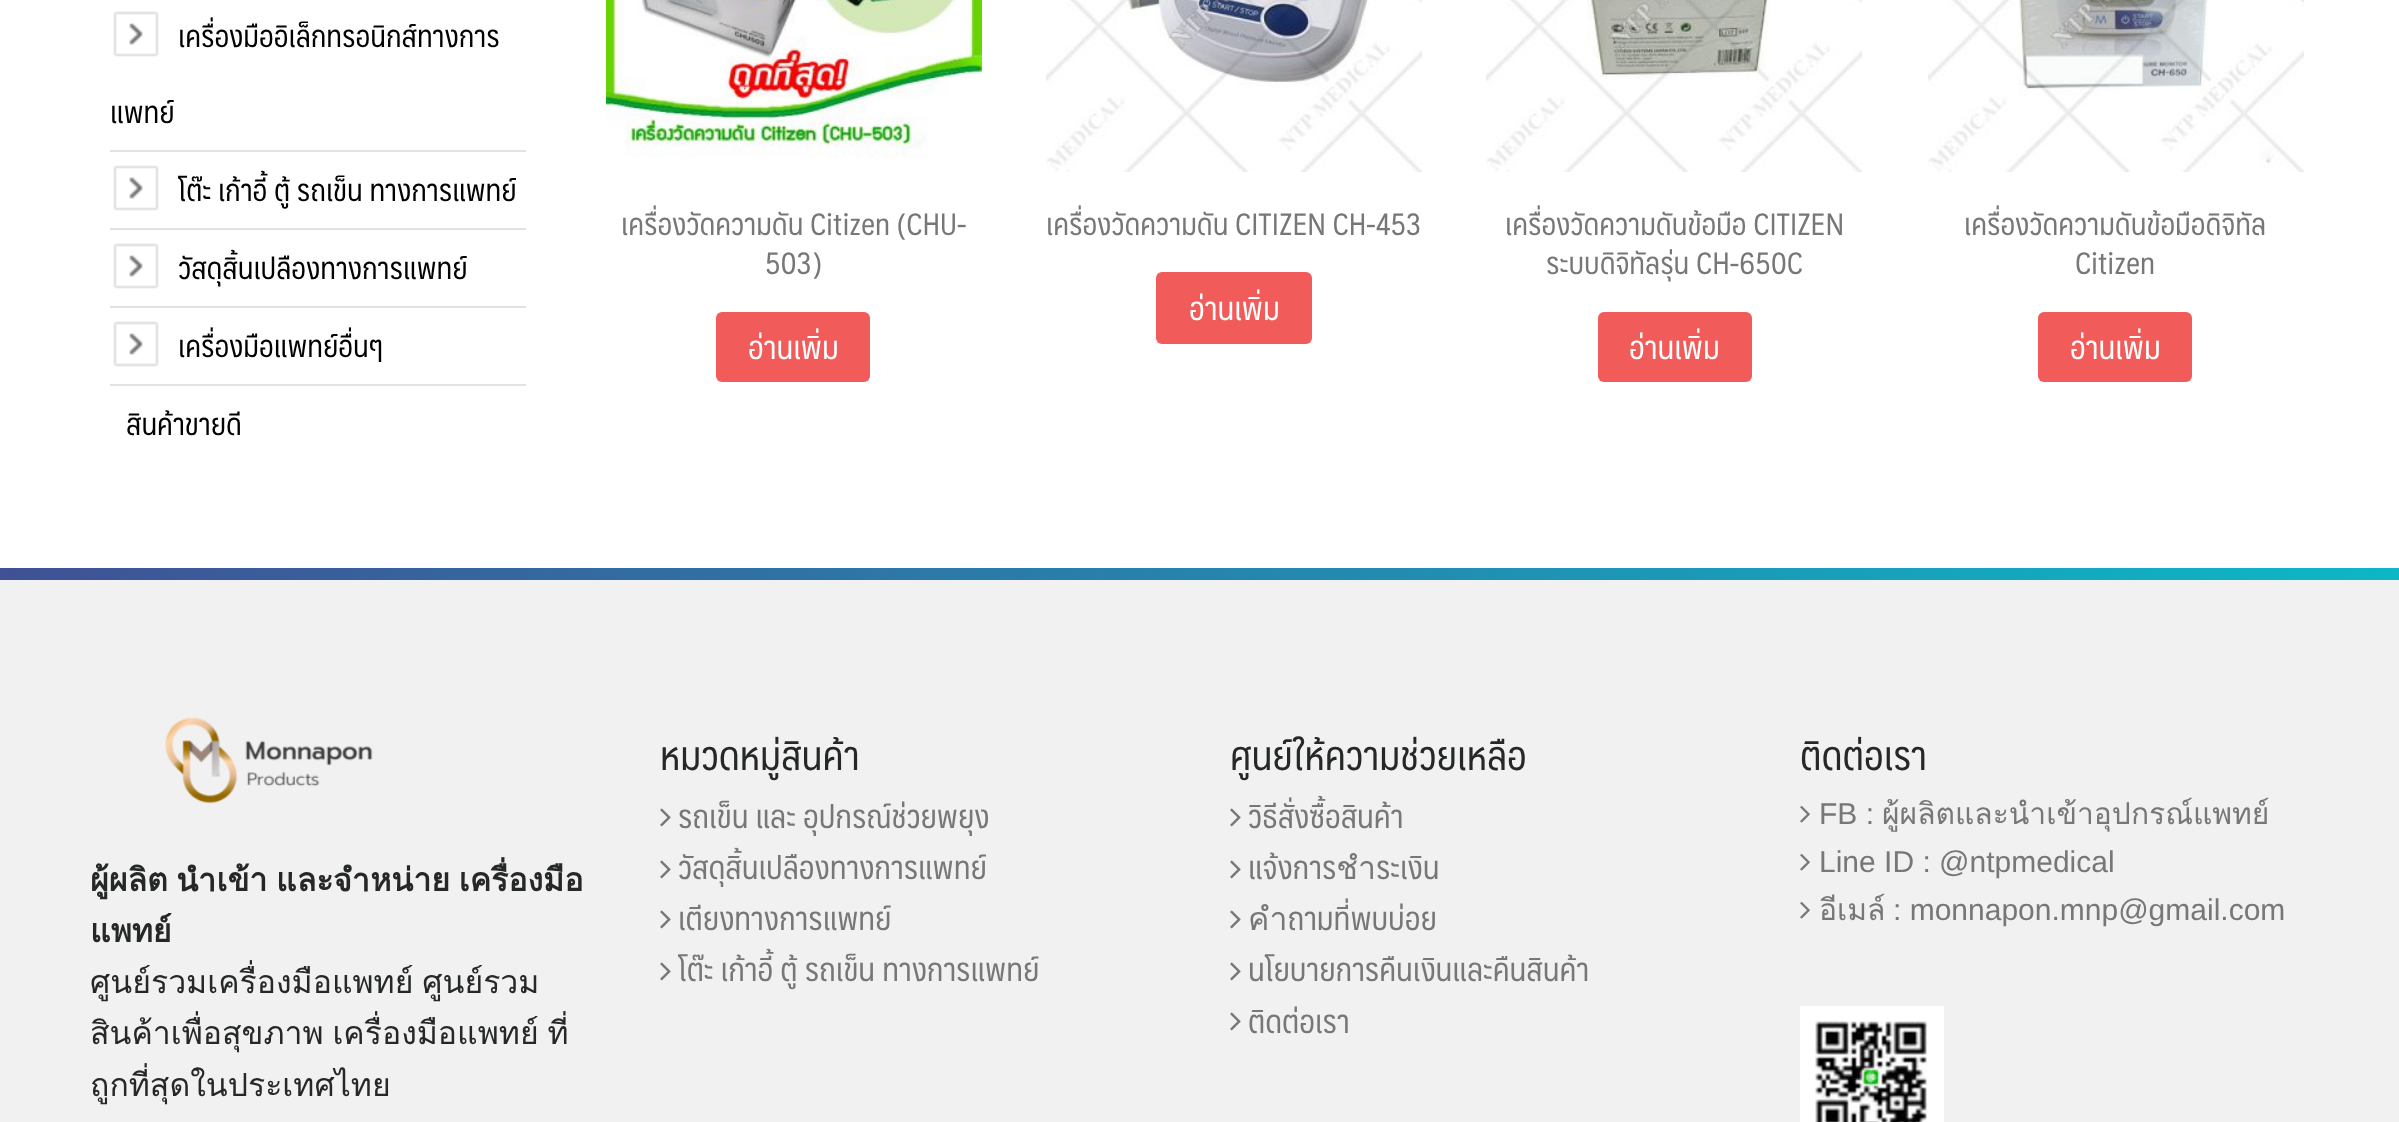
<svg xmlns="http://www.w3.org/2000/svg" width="2399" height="1122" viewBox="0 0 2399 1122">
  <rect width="100%" height="100%" fill="rgb(255,255,255)"/>
  <rect x="110" y="150" width="416" height="2" fill="rgb(226,226,226)"/>
  <image x="113" y="11" width="46" height="46" href="pic1.png"/>
  <g font-family="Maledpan" font-size="30" fill="rgb(0,0,0)">
    <text x="178" y="47">เครื่องมืออิเล็กทรอนิกส์ทางการ</text>
    <text x="110" y="123">แพทย์</text>
  </g>
  <rect x="110" y="228" width="416" height="2" fill="rgb(226,226,226)"/>
  <image x="113" y="165" width="46" height="46" href="pic1.png"/>
  <text x="178" y="201" font-family="Maledpan" font-size="30" fill="rgb(0,0,0)">โต๊ะ เก้าอี้ ตู้ รถเข็น ทางการแพทย์</text>
  <rect x="110" y="306" width="416" height="2" fill="rgb(226,226,226)"/>
  <image x="113" y="243" width="46" height="46" href="pic1.png"/>
  <text x="178" y="279" font-family="Maledpan" font-size="30" fill="rgb(0,0,0)">วัสดุสิ้นเปลืองทางการแพทย์</text>
  <rect x="110" y="384" width="416" height="2" fill="rgb(226,226,226)"/>
  <image x="113" y="321" width="46" height="46" href="pic1.png"/>
  <g font-family="Maledpan" font-size="30" fill="rgb(0,0,0)">
    <text x="178" y="357">เครื่องมือแพทย์อื่นๆ</text>
    <text x="126" y="435">สินค้าขายดี</text>
  </g>
  <image x="606" y="0" width="376" height="158" href="pic2.png"/>
  <g font-family="Maledpan" font-size="30" fill="rgb(119,119,119)">
    <text x="621" y="235">เครื่องวัดความดัน Citizen (CHU-</text>
    <text x="765" y="274">503)</text>
  </g>
  <rect x="716" y="312" width="154" height="70" rx="6" fill="rgb(241,91,90)"/>
  <text x="748" y="359" font-family="Maledpan" font-size="32" fill="rgb(255,255,255)">อ่านเพิ่ม</text>
  <image x="1046" y="0" width="376" height="172" href="pic3.png"/>
  <text x="1046" y="235" font-family="Maledpan" font-size="30" fill="rgb(119,119,119)">เครื่องวัดความดัน CITIZEN CH-453</text>
  <rect x="1156" y="272" width="156" height="72" rx="6" fill="rgb(241,91,90)"/>
  <text x="1189" y="320" font-family="Maledpan" font-size="32" fill="rgb(255,255,255)">อ่านเพิ่ม</text>
  <image x="1486" y="0" width="376" height="172" href="pic4.png"/>
  <g font-family="Maledpan" font-size="30" fill="rgb(119,119,119)">
    <text x="1505" y="235">เครื่องวัดความดันข้อมือ CITIZEN</text>
    <text x="1546" y="274">ระบบดิจิทัลรุ่น CH-650C</text>
  </g>
  <rect x="1598" y="312" width="154" height="70" rx="6" fill="rgb(241,91,90)"/>
  <text x="1629" y="359" font-family="Maledpan" font-size="32" fill="rgb(255,255,255)">อ่านเพิ่ม</text>
  <image x="1928" y="0" width="376" height="172" href="pic5.png"/>
  <g font-family="Maledpan" font-size="30" fill="rgb(119,119,119)">
    <text x="1964" y="235">เครื่องวัดความดันข้อมือดิจิทัล</text>
    <text x="2075" y="274">Citizen</text>
  </g>
  <rect x="2038" y="312" width="154" height="70" rx="6" fill="rgb(241,91,90)"/>
  <text x="2070" y="359" font-family="Maledpan" font-size="32" fill="rgb(255,255,255)">อ่านเพิ่ม</text>
  <image x="0" y="568" width="2399" height="12" href="pic6.png"/>
  <rect x="0" y="580" width="2399" height="542" fill="rgb(241,241,241)"/>
  <text x="660" y="770" font-family="Maledpan" font-size="40" fill="rgb(38,40,40)">หมวดหมู่สินค้า</text>
  <image x="660" y="808" width="11" height="19" href="pic7.png"/>
  <text x="678" y="828" font-family="Maledpan" font-size="32" fill="rgb(119,119,119)">รถเข็น และ อุปกรณ์ช่วยพยุง</text>
  <image x="660" y="860" width="11" height="19" href="pic7.png"/>
  <text x="678" y="879" font-family="Maledpan" font-size="32" fill="rgb(119,119,119)">วัสดุสิ้นเปลืองทางการแพทย์</text>
  <image x="660" y="910" width="11" height="19" href="pic7.png"/>
  <text x="678" y="930" font-family="Maledpan" font-size="32" fill="rgb(119,119,119)">เตียงทางการแพทย์</text>
  <image x="660" y="962" width="11" height="19" href="pic7.png"/>
  <text x="678" y="981" font-family="Maledpan" font-size="32" fill="rgb(119,119,119)">โต๊ะ เก้าอี้ ตู้ รถเข็น ทางการแพทย์</text>
  <text x="1230" y="770" font-family="Maledpan" font-size="40" fill="rgb(38,40,40)">ศูนย์ให้ความช่วยเหลือ</text>
  <image x="1230" y="808" width="11" height="19" href="pic7.png"/>
  <text x="1248" y="828" font-family="Maledpan" font-size="32" fill="rgb(119,119,119)">วิธีสั่งซื้อสินค้า</text>
  <image x="1230" y="860" width="11" height="19" href="pic7.png"/>
  <text x="1248" y="879" font-family="Maledpan" font-size="32" fill="rgb(119,119,119)">แจ้งการชำระเงิน</text>
  <image x="1230" y="910" width="11" height="19" href="pic7.png"/>
  <text x="1248" y="930" font-family="Maledpan" font-size="32" fill="rgb(119,119,119)">คำถามที่พบบ่อย</text>
  <image x="1230" y="962" width="11" height="19" href="pic7.png"/>
  <text x="1248" y="981" font-family="Maledpan" font-size="32" fill="rgb(119,119,119)">นโยบายการคืนเงินและคืนสินค้า</text>
  <image x="1230" y="1012" width="11" height="19" href="pic7.png"/>
  <text x="1248" y="1033" font-family="Maledpan" font-size="32" fill="rgb(119,119,119)">ติดต่อเรา</text>
  <text x="1800" y="770" font-family="Maledpan" font-size="40" fill="rgb(38,40,40)">ติดต่อเรา</text>
  <image x="1800" y="805" width="10" height="18" href="pic8.png"/>
  <text x="1819" y="824" font-family="Liberation Sans" font-size="30" fill="rgb(119,119,119)">FB :</text>
  <text x="1882" y="824" font-family="Loma" font-size="30" fill="rgb(119,119,119)">ผู้ผลิตและนำเข้าอุปกรณ์แพทย์</text>
  <image x="1800" y="853" width="10" height="18" href="pic8.png"/>
  <text x="1819" y="872" font-family="Liberation Sans" font-size="30" fill="rgb(119,119,119)">Line ID : @ntpmedical</text>
  <image x="1800" y="901" width="10" height="18" href="pic8.png"/>
  <text x="1819" y="920" font-family="Loma" font-size="30" fill="rgb(119,119,119)">อีเมล์</text>
  <text x="1893" y="920" font-family="Liberation Sans" font-size="30" fill="rgb(119,119,119)">: monnapon.mnp@gmail.com</text>
  <image x="1800" y="1006" width="144" height="116" href="pic9.png"/>
  <image x="165" y="717" width="208" height="87" href="pic10.png"/>
  <g font-family="Loma" font-size="32" font-weight="bold" fill="rgb(38,40,40)">
    <text>
      <tspan x="90" y="891" word-spacing="-2">ผู้ผลิต นำเข้า และจำหน่าย เครื่องมือ</tspan>
      <tspan x="90" y="942">แพทย์</tspan>
    </text>
  </g>
  <g font-family="Loma" font-size="32" fill="rgb(38,40,40)">
    <text>
      <tspan x="90" y="993" word-spacing="-2">ศูนย์รวมเครื่องมือแพทย์ ศูนย์รวม</tspan>
      <tspan x="90" y="1044" word-spacing="-2">สินค้าเพื่อสุขภาพ เครื่องมือแพทย์ ที่</tspan>
      <tspan x="90" y="1096">ถูกที่สุดในประเทศไทย</tspan>
    </text>
  </g>
</svg>
